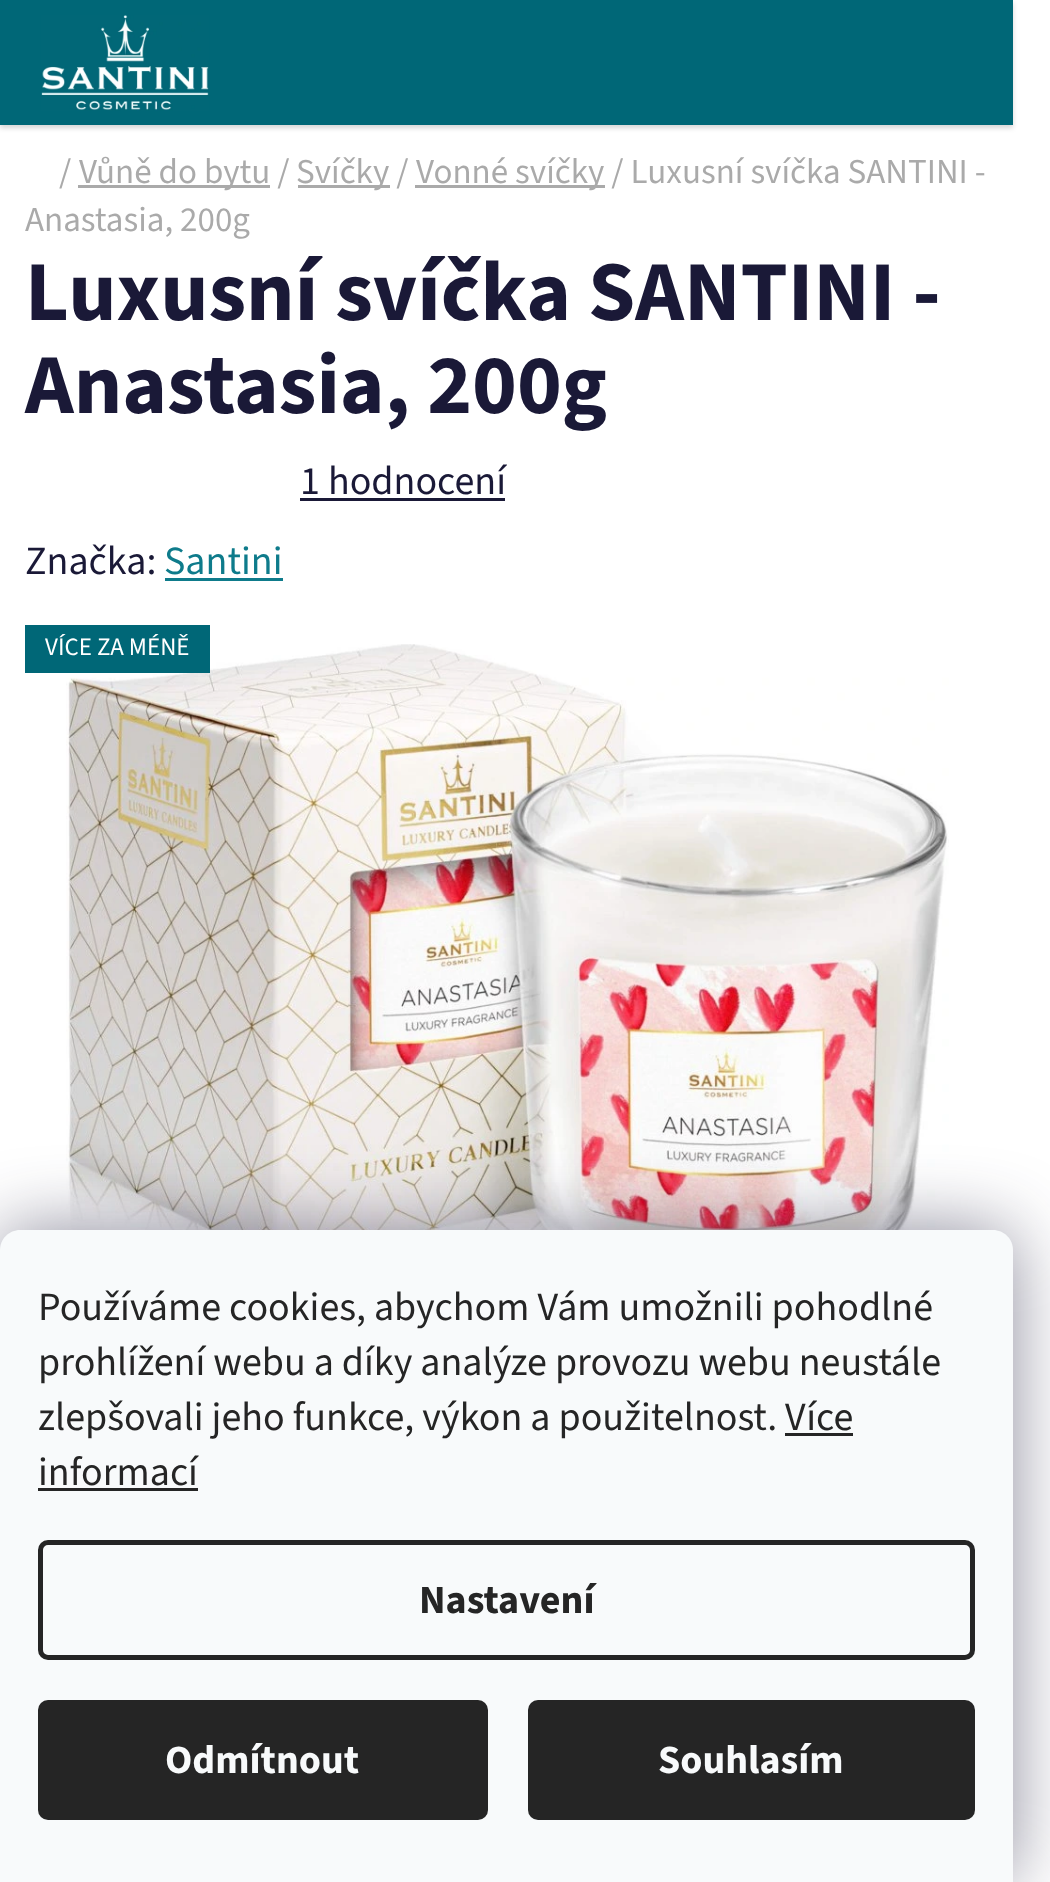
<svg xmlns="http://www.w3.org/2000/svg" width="1050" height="1882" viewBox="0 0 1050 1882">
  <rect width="100%" height="100%" fill="rgb(255,255,255)"/>
  <rect x="0" y="3" width="1013" height="125" fill="rgba(0,0,0,0.16)" filter="blur(2.5px)"/>
  <rect x="0" y="0" width="1013" height="125" fill="rgb(0,103,119)"/>
  <image x="41" y="15" width="168" height="96" href="pic1.png"/>
  <text x="59" y="183" font-family="'Source Sans 3'" font-size="35" fill="rgb(170,170,170)">/</text>
  <rect x="78" y="185" width="192" height="3" fill="rgb(170,170,170)"/>
  <text x="79" y="183" font-family="'Source Sans 3'" font-size="35" fill="rgb(170,170,170)">Vůně do bytu /</text>
  <rect x="298" y="185" width="92" height="3" fill="rgb(170,170,170)"/>
  <text x="296" y="183" font-family="'Source Sans 3'" font-size="35" fill="rgb(170,170,170)">Svíčky /</text>
  <rect x="415" y="185" width="190" height="3" fill="rgb(170,170,170)"/>
  <g font-family="'Source Sans 3'" font-size="35" fill="rgb(170,170,170)">
    <text x="416" y="183">Vonné svíčky / Luxusní svíčka SANTINI -</text>
    <text x="25" y="231">Anastasia, 200g</text>
  </g>
  <g font-family="'Source Sans 3'" font-size="85" font-weight="bold" fill="rgb(26,25,55)">
    <text>
      <tspan x="25" y="320">Luxusní svíčka SANTINI -</tspan>
      <tspan x="25" y="413">Anastasia, 200g</tspan>
    </text>
  </g>
  <text x="300" y="494" font-family="'Source Sans 3'" font-size="40" fill="rgb(26,25,55)">1 hodnocení</text>
  <rect x="300" y="498" width="205" height="3" fill="rgb(26,25,55)"/>
  <text x="25" y="574" font-family="'Source Sans 3'" font-size="40" fill="rgb(26,25,55)">Značka:</text>
  <text x="164" y="574" font-family="'Source Sans 3'" font-size="40" fill="rgb(14,123,139)">Santini</text>
  <rect x="165" y="578" width="118" height="3" fill="rgb(14,123,139)"/>
  <image x="66" y="644" width="883" height="586" href="pic2.png"/>
  <rect x="25" y="625" width="185" height="48" fill="rgb(0,103,119)"/>
  <text x="45" y="655" font-family="'Source Sans 3'" font-size="25" fill="rgb(255,255,255)">VÍCE ZA MÉNĚ</text>
  <rect x="0" y="1230" width="1013" height="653" rx="20" fill="rgba(27,25,57,0.5)" filter="blur(37.5px)"/>
  <path d="M20 1230H993C1004 1230 1013 1239 1013 1250V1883H0V1250C0 1239 9 1230 20 1230Z" fill="rgb(248,250,251)"/>
  <g font-family="'Source Sans 3'" font-size="40" fill="rgb(37,37,37)">
    <text>
      <tspan x="38" y="1320">Používáme cookies, abychom Vám umožnili pohodlné</tspan>
      <tspan x="38" y="1375">prohlížení webu a díky analýze provozu webu neustále</tspan>
      <tspan x="38" y="1430">zlepšovali jeho funkce, výkon a použitelnost. Více</tspan>
      <tspan x="38" y="1485">informací</tspan>
    </text>
  </g>
  <rect x="785" y="1433" width="68" height="3" fill="rgb(37,37,37)"/>
  <rect x="38" y="1488" width="160" height="3" fill="rgb(37,37,37)"/>
  <rect x="40.5" y="1542.5" width="932" height="115" rx="7.5" fill="none" stroke="rgb(37,37,37)" stroke-width="5"/>
  <text x="419" y="1613" font-family="'Source Sans 3'" font-size="40" font-weight="bold" fill="rgb(37,37,37)">Nastavení</text>
  <rect x="38" y="1700" width="450" height="120" rx="10" fill="rgb(37,37,37)"/>
  <text x="165" y="1773" font-family="'Source Sans 3'" font-size="40" font-weight="bold" fill="rgb(248,250,251)">Odmítnout</text>
  <rect x="528" y="1700" width="447" height="120" rx="10" fill="rgb(37,37,37)"/>
  <text x="658" y="1773" font-family="'Source Sans 3'" font-size="40" font-weight="bold" fill="rgb(248,250,251)">Souhlasím</text>
</svg>
